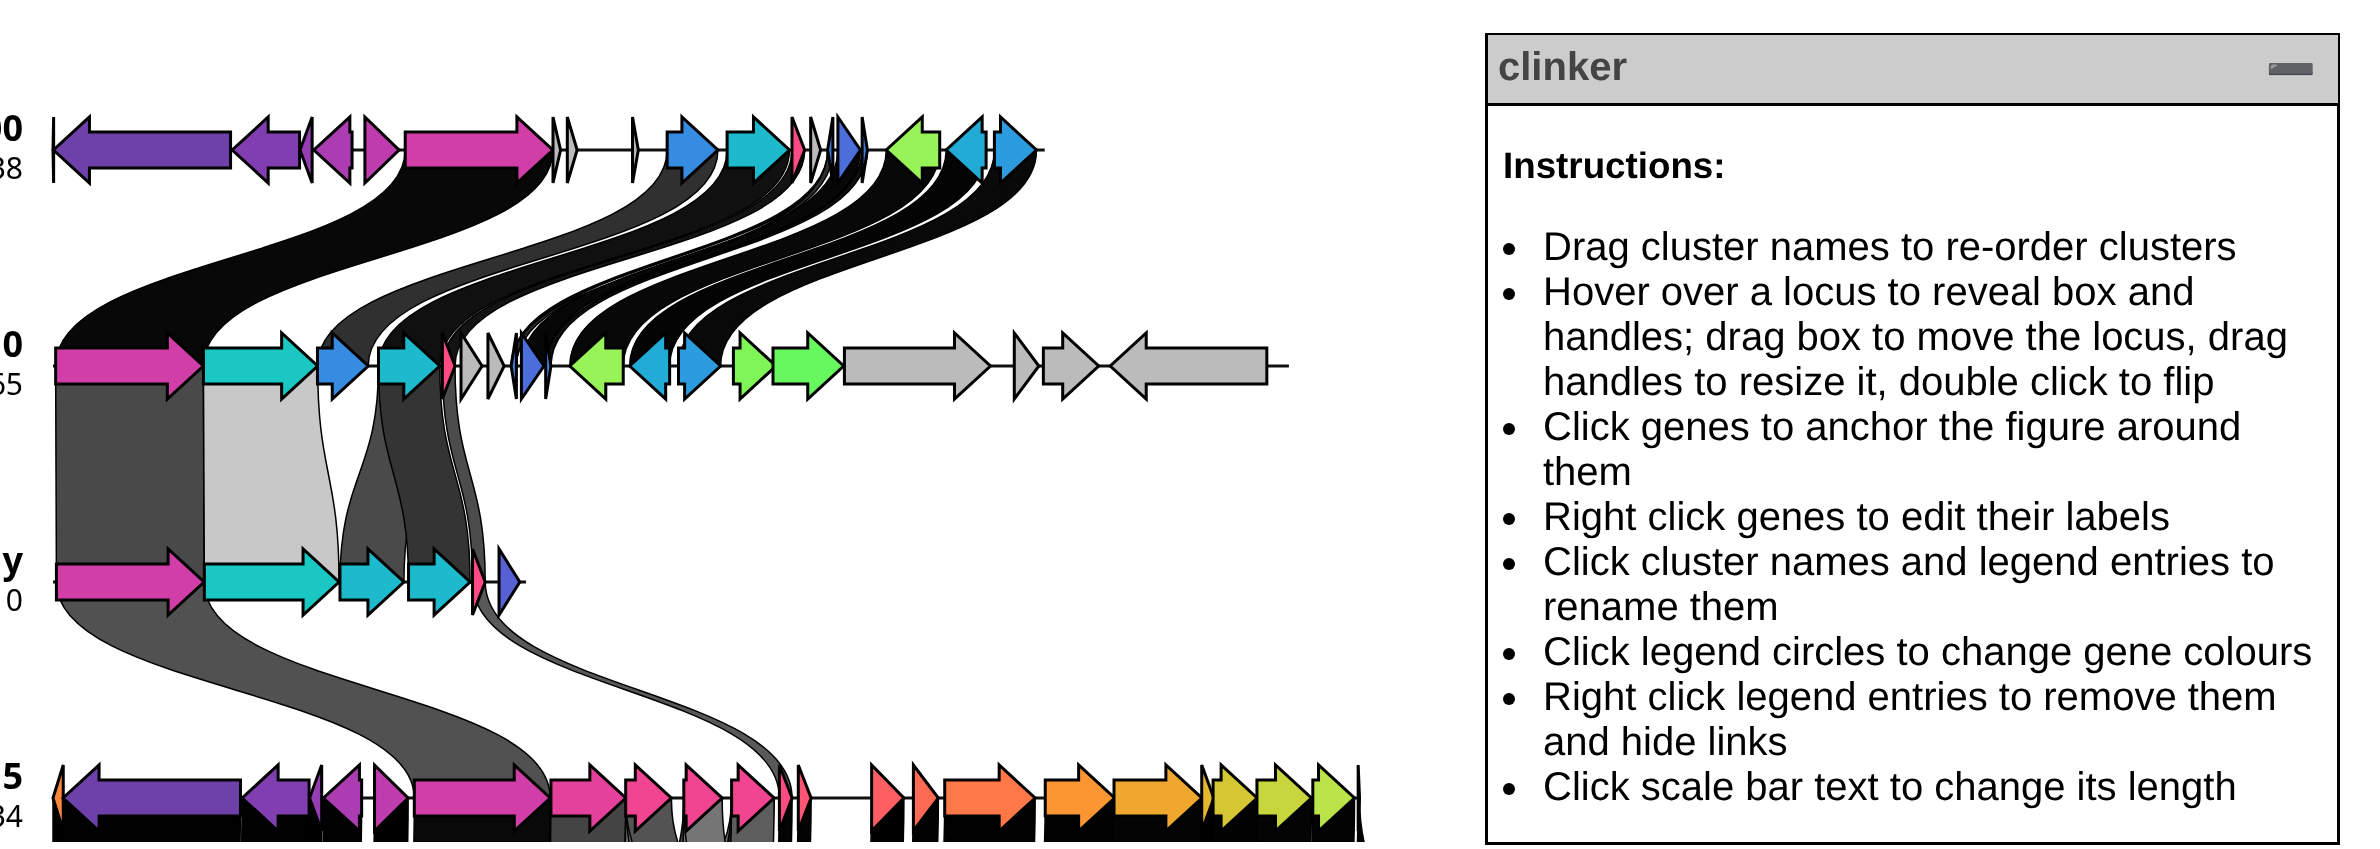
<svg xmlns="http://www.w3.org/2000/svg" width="2380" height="849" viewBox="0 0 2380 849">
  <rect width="100%" height="100%" fill="rgb(255,255,255)"/>
  <image x="0" y="112" width="1365" height="730" href="pic1.png"/>
  <rect x="1486.5" y="34.5" width="852" height="809" fill="none" stroke="rgb(0,0,0)" stroke-width="3"/>
  <rect x="1488" y="35" width="850" height="68" fill="rgb(204,204,204)"/>
  <rect x="1488" y="103" width="850" height="3" fill="rgb(0,0,0)"/>
  <text x="1498" y="80" font-family="Liberation Sans" font-size="40" font-weight="bold" fill="rgb(68,68,68)">clinker</text>
  <text x="2266" y="83" font-family="Noto Color Emoji" font-size="40" font-weight="bold" fill="rgb(255,255,255)">➖</text>
  <text x="1503" y="178" font-family="Liberation Sans" font-size="36.75" font-weight="bold" fill="rgb(0,0,0)">Instructions:</text>
  <circle cx="1509" cy="249" r="6" fill="rgb(0,0,0)"/>
  <text x="1543" y="260" font-family="Liberation Sans" font-size="40" fill="rgb(0,0,0)">Drag cluster names to re-order clusters</text>
  <circle cx="1509" cy="294" r="6" fill="rgb(0,0,0)"/>
  <g font-family="Liberation Sans" font-size="40" fill="rgb(0,0,0)">
    <text>
      <tspan x="1543" y="305">Hover over a locus to reveal box and</tspan>
      <tspan x="1543" y="350">handles; drag box to move the locus, drag</tspan>
      <tspan x="1543" y="395">handles to resize it, double click to flip</tspan>
    </text>
  </g>
  <circle cx="1509" cy="429" r="6" fill="rgb(0,0,0)"/>
  <g font-family="Liberation Sans" font-size="40" fill="rgb(0,0,0)">
    <text>
      <tspan x="1543" y="440">Click genes to anchor the figure around</tspan>
      <tspan x="1543" y="485">them</tspan>
    </text>
  </g>
  <circle cx="1509" cy="519" r="6" fill="rgb(0,0,0)"/>
  <text x="1543" y="530" font-family="Liberation Sans" font-size="40" fill="rgb(0,0,0)">Right click genes to edit their labels</text>
  <circle cx="1509" cy="564" r="6" fill="rgb(0,0,0)"/>
  <g font-family="Liberation Sans" font-size="40" fill="rgb(0,0,0)">
    <text>
      <tspan x="1543" y="575">Click cluster names and legend entries to</tspan>
      <tspan x="1543" y="620">rename them</tspan>
    </text>
  </g>
  <circle cx="1509" cy="654" r="6" fill="rgb(0,0,0)"/>
  <text x="1543" y="665" font-family="Liberation Sans" font-size="40" fill="rgb(0,0,0)">Click legend circles to change gene colours</text>
  <circle cx="1509" cy="699" r="6" fill="rgb(0,0,0)"/>
  <g font-family="Liberation Sans" font-size="40" fill="rgb(0,0,0)">
    <text>
      <tspan x="1543" y="710">Right click legend entries to remove them</tspan>
      <tspan x="1543" y="755">and hide links</tspan>
    </text>
  </g>
  <circle cx="1509" cy="789" r="6" fill="rgb(0,0,0)"/>
  <text x="1543" y="800" font-family="Liberation Sans" font-size="40" fill="rgb(0,0,0)">Click scale bar text to change its length</text>
</svg>
